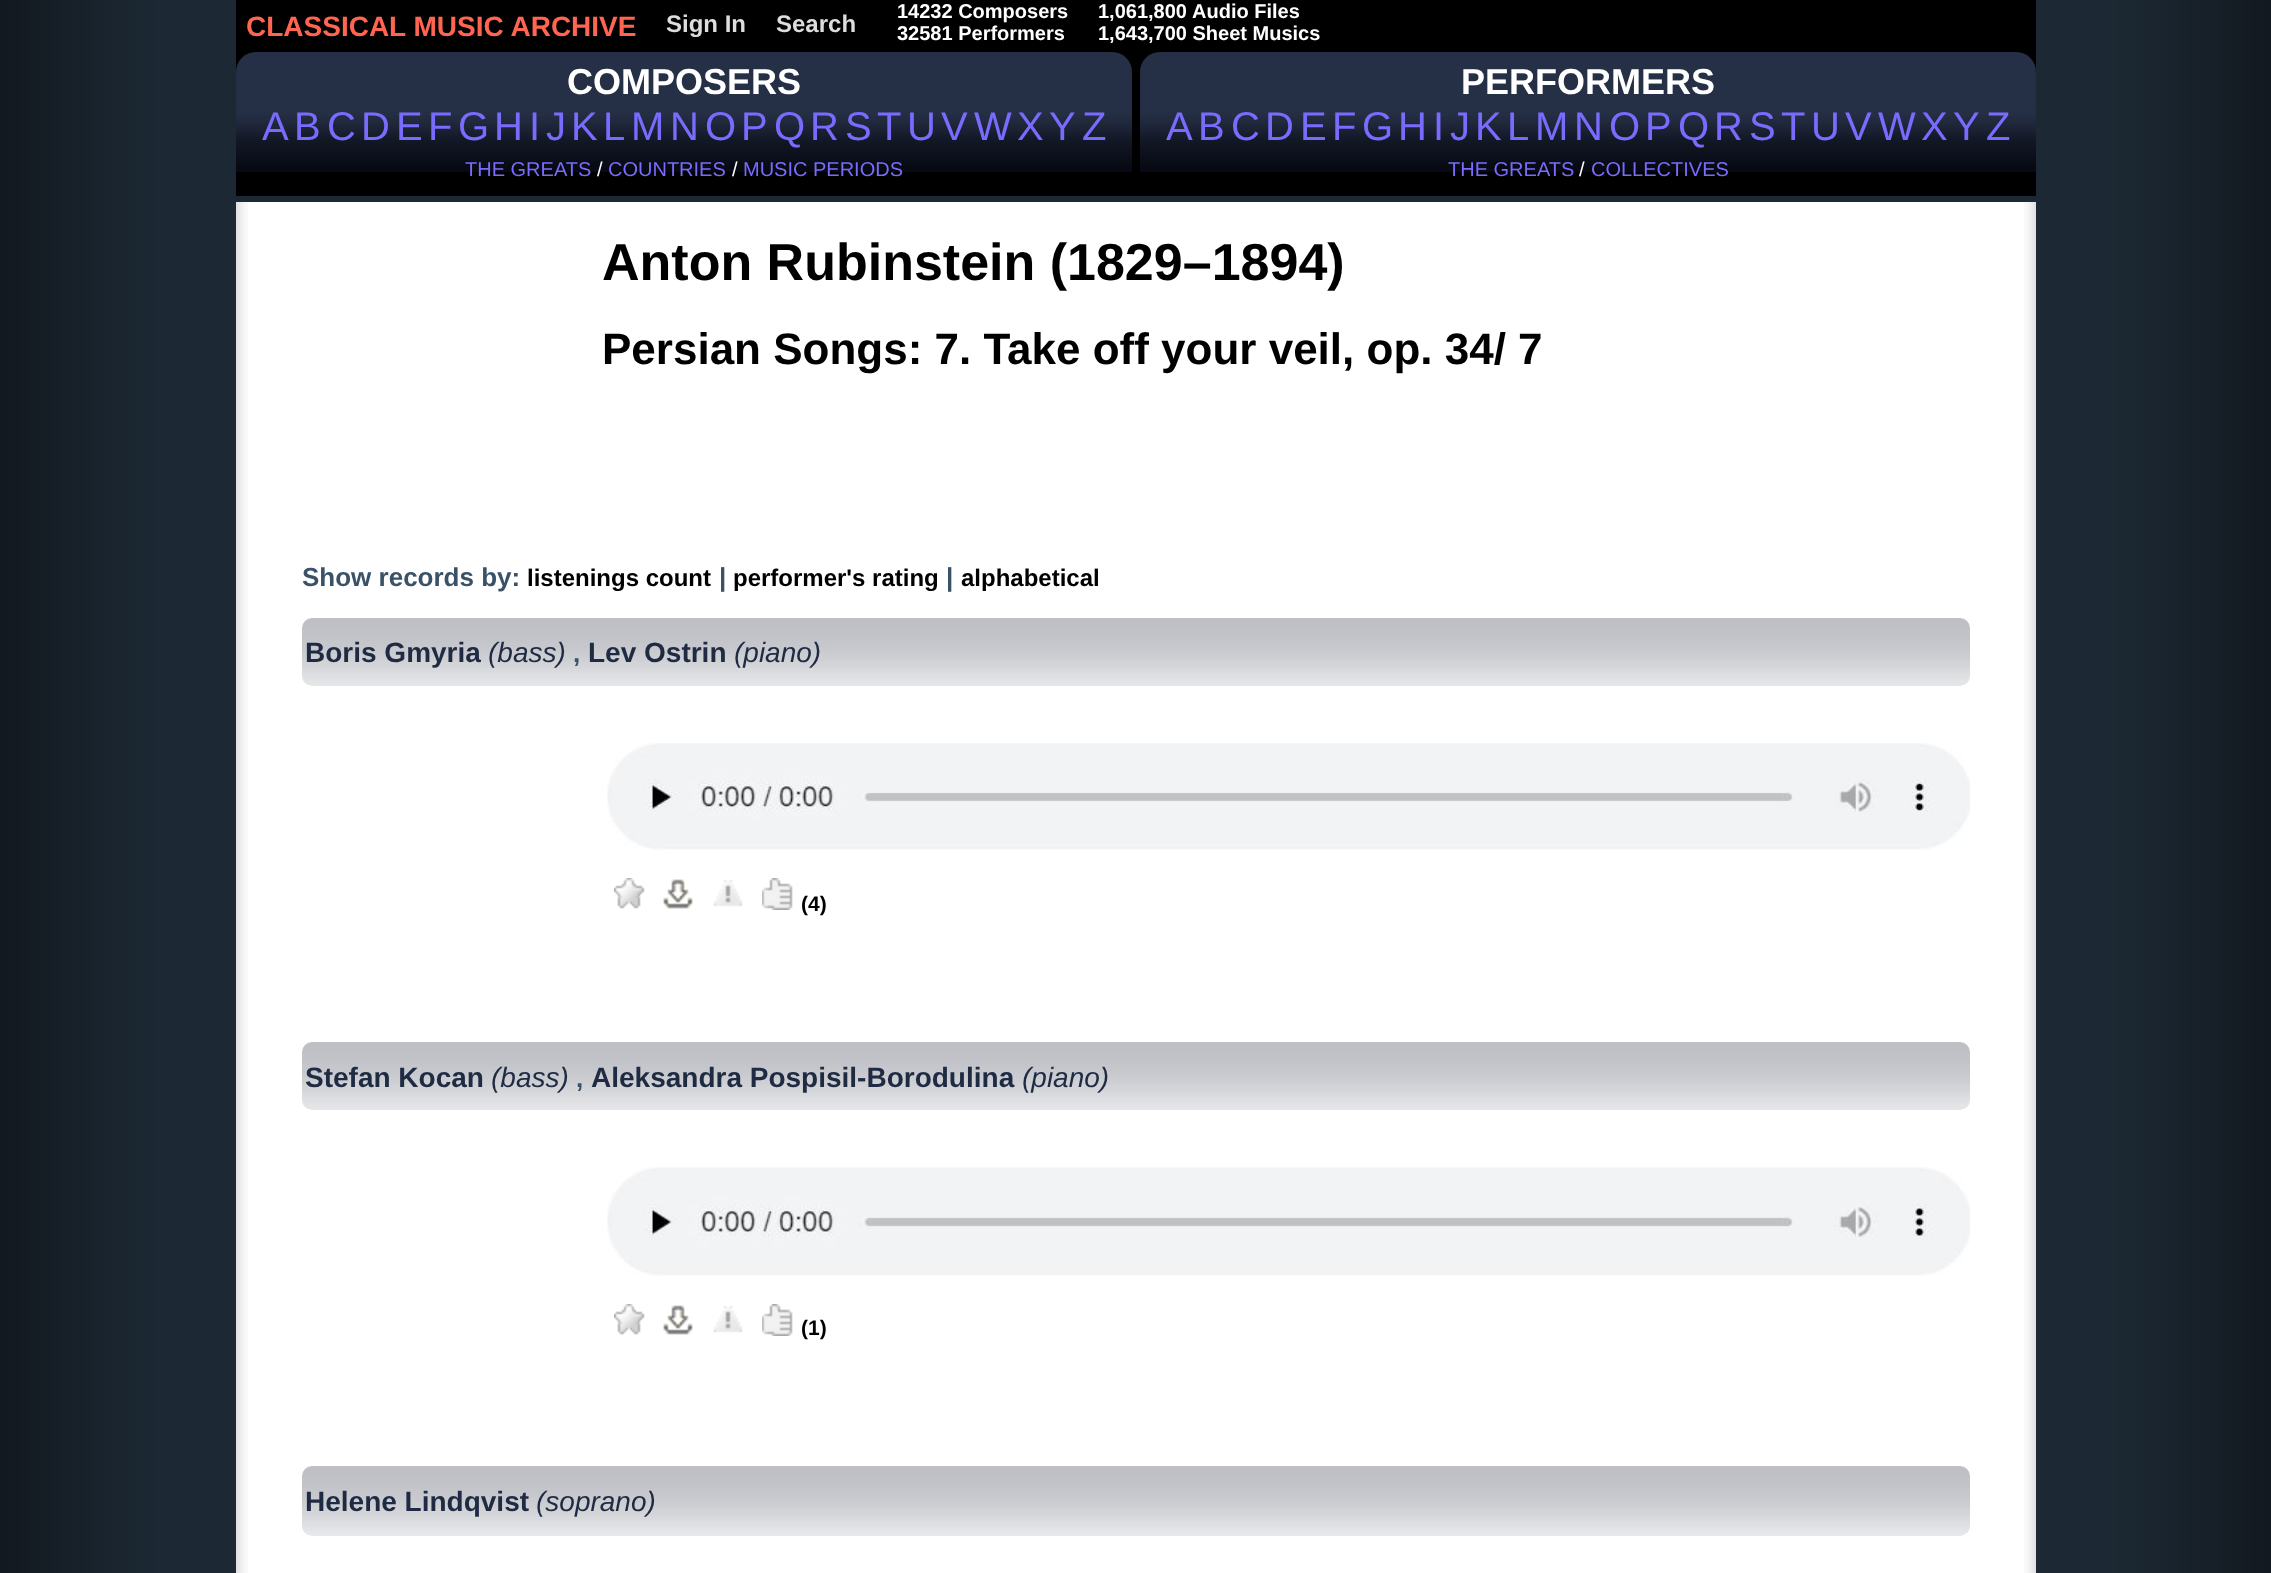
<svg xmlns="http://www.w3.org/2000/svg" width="2271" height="1573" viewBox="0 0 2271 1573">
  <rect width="100%" height="100%" fill="rgb(255,255,255)"/>
  <image x="0" y="0" width="2271" height="1573" href="pic1.png"/>
  <rect x="236" y="0" width="1800" height="196" fill="rgb(0,0,0)"/>
  <text x="246" y="36" font-family="Liberation Sans" font-size="28" font-weight="bold" fill="rgb(255,101,80)">CLASSICAL MUSIC ARCHIVE</text>
  <g font-family="Liberation Sans" font-size="24" font-weight="bold" fill="rgb(221,221,221)">
    <text x="666" y="32">Sign In</text>
    <text x="776" y="32">Search</text>
  </g>
  <g font-family="Liberation Sans" font-size="20" font-weight="bold" fill="rgb(255,255,255)">
    <text>
      <tspan x="897" y="18">14232 Composers</tspan>
      <tspan x="897" y="40">32581 Performers</tspan>
    </text>
    <text x="1098" y="18">1,061,800</text>
    <text x="1192" y="18">Audio Files</text>
    <text x="1098" y="40">1,643,700 Sheet Musics</text>
  </g>
  <image x="236" y="52" width="896" height="120" href="pic2.png"/>
  <text x="567" y="94" font-family="Liberation Sans" font-size="36" font-weight="bold" fill="rgb(255,255,255)">COMPOSERS</text>
  <g font-family="Liberation Sans" font-size="40" fill="rgb(121,107,253)">
    <text x="262" y="140">A</text>
    <text x="294" y="140">B</text>
    <text x="327" y="140">C</text>
    <text x="361" y="140">D</text>
    <text x="396" y="140">E</text>
    <text x="428" y="140">F</text>
    <text x="458" y="140">G</text>
    <text x="494" y="140">H</text>
    <text x="529" y="140">I</text>
    <text x="546" y="140">J</text>
    <text x="571" y="140">K</text>
    <text x="603" y="140">L</text>
    <text x="631" y="140">M</text>
    <text x="670" y="140">N</text>
    <text x="705" y="140">O</text>
    <text x="741" y="140">P</text>
    <text x="774" y="140">Q</text>
    <text x="810" y="140">R</text>
    <text x="845" y="140">S</text>
    <text x="877" y="140">T</text>
    <text x="907" y="140">U</text>
    <text x="941" y="140">V</text>
    <text x="974" y="140">W</text>
    <text x="1017" y="140">X</text>
    <text x="1049" y="140">Y</text>
    <text x="1082" y="140">Z</text>
  </g>
  <text x="465" y="176" font-family="Liberation Sans" font-size="20" fill="rgb(121,107,253)">THE GREATS</text>
  <text x="597" y="176" font-family="Liberation Sans" font-size="20" fill="rgb(255,255,255)">/</text>
  <text x="608" y="176" font-family="Liberation Sans" font-size="20" fill="rgb(121,107,253)">COUNTRIES</text>
  <text x="732" y="176" font-family="Liberation Sans" font-size="20" fill="rgb(255,255,255)">/</text>
  <text x="743" y="176" font-family="Liberation Sans" font-size="20" fill="rgb(121,107,253)">MUSIC PERIODS</text>
  <image x="1140" y="52" width="896" height="120" href="pic3.png"/>
  <text x="1461" y="94" font-family="Liberation Sans" font-size="36" font-weight="bold" fill="rgb(255,255,255)">PERFORMERS</text>
  <g font-family="Liberation Sans" font-size="40" fill="rgb(121,107,253)">
    <text x="1166" y="140">A</text>
    <text x="1198" y="140">B</text>
    <text x="1231" y="140">C</text>
    <text x="1265" y="140">D</text>
    <text x="1300" y="140">E</text>
    <text x="1332" y="140">F</text>
    <text x="1362" y="140">G</text>
    <text x="1398" y="140">H</text>
    <text x="1433" y="140">I</text>
    <text x="1450" y="140">J</text>
    <text x="1475" y="140">K</text>
    <text x="1507" y="140">L</text>
    <text x="1535" y="140">M</text>
    <text x="1574" y="140">N</text>
    <text x="1609" y="140">O</text>
    <text x="1645" y="140">P</text>
    <text x="1678" y="140">Q</text>
    <text x="1714" y="140">R</text>
    <text x="1749" y="140">S</text>
    <text x="1781" y="140">T</text>
    <text x="1811" y="140">U</text>
    <text x="1845" y="140">V</text>
    <text x="1878" y="140">W</text>
    <text x="1921" y="140">X</text>
    <text x="1953" y="140">Y</text>
    <text x="1986" y="140">Z</text>
  </g>
  <text x="1448" y="176" font-family="Liberation Sans" font-size="20" fill="rgb(121,107,253)">THE GREATS</text>
  <text x="1579" y="176" font-family="Liberation Sans" font-size="20" fill="rgb(255,255,255)">/</text>
  <text x="1591" y="176" font-family="Liberation Sans" font-size="20" fill="rgb(121,107,253)">COLLECTIVES</text>
  <rect x="248" y="202" width="1776" height="1371" fill="rgb(255,255,255)"/>
  <image x="236" y="202" width="12" height="1371" href="pic4.png"/>
  <text x="602" y="280" font-family="Liberation Sans" font-size="52" font-weight="bold" fill="rgb(0,0,0)">Anton Rubinstein (1829–1894)</text>
  <text x="602" y="364" font-family="Liberation Sans" font-size="44" font-weight="bold" fill="rgb(0,0,0)">Persian Songs: 7. Take off your veil, op. 34/ 7</text>
  <text x="302" y="586" font-family="Liberation Sans" font-size="26" font-weight="bold" fill="rgb(57,82,104)">Show records by:</text>
  <text x="527" y="586" font-family="Liberation Sans" font-size="24" font-weight="bold" fill="rgb(0,0,0)">listenings count</text>
  <text x="719" y="586" font-family="Liberation Sans" font-size="26" font-weight="bold" fill="rgb(57,82,104)">|</text>
  <text x="733" y="586" font-family="Liberation Sans" font-size="24" font-weight="bold" fill="rgb(0,0,0)">performer's rating</text>
  <text x="946" y="586" font-family="Liberation Sans" font-size="26" font-weight="bold" fill="rgb(57,82,104)">|</text>
  <text x="961" y="586" font-family="Liberation Sans" font-size="24" font-weight="bold" fill="rgb(0,0,0)">alphabetical</text>
  <image x="302" y="618" width="1668" height="68" href="pic5.png"/>
  <text x="305" y="662" font-family="Liberation Sans" font-size="28" font-weight="bold" fill="rgb(31,43,67)">Boris Gmyria</text>
  <text x="488" y="662" font-family="Liberation Sans" font-size="28" font-style="italic" fill="rgb(31,43,67)">(bass)</text>
  <text x="573" y="662" font-family="Liberation Sans" font-size="26" font-weight="bold" fill="rgb(57,82,104)">,</text>
  <text x="588" y="662" font-family="Liberation Sans" font-size="28" font-weight="bold" fill="rgb(31,43,67)">Lev Ostrin</text>
  <text x="734" y="662" font-family="Liberation Sans" font-size="28" font-style="italic" fill="rgb(31,43,67)">(piano)</text>
  <image x="607" y="743" width="1363" height="107" href="pic6.png"/>
  <image x="614" y="878" width="31" height="31" href="pic7.png"/>
  <image x="663" y="879" width="30" height="30" href="pic8.png"/>
  <image x="713" y="879" width="30" height="28" href="pic9.png"/>
  <image x="762" y="878" width="31" height="32" href="pic10.png"/>
  <text x="801" y="911" font-family="Liberation Sans" font-size="21" font-weight="bold" fill="rgb(0,0,0)">(4)</text>
  <image x="302" y="1042" width="1668" height="68" href="pic5.png"/>
  <text x="305" y="1087" font-family="Liberation Sans" font-size="28" font-weight="bold" fill="rgb(31,43,67)">Stefan Kocan</text>
  <text x="491" y="1087" font-family="Liberation Sans" font-size="28" font-style="italic" fill="rgb(31,43,67)">(bass)</text>
  <text x="576" y="1087" font-family="Liberation Sans" font-size="26" font-weight="bold" fill="rgb(57,82,104)">,</text>
  <text x="591" y="1087" font-family="Liberation Sans" font-size="28" font-weight="bold" fill="rgb(31,43,67)">Aleksandra Pospisil-Borodulina</text>
  <text x="1022" y="1087" font-family="Liberation Sans" font-size="28" font-style="italic" fill="rgb(31,43,67)">(piano)</text>
  <image x="607" y="1167" width="1363" height="109" href="pic11.png"/>
  <image x="614" y="1304" width="31" height="31" href="pic7.png"/>
  <image x="663" y="1305" width="30" height="30" href="pic8.png"/>
  <image x="713" y="1305" width="30" height="28" href="pic9.png"/>
  <image x="762" y="1304" width="31" height="32" href="pic10.png"/>
  <text x="801" y="1335" font-family="Liberation Sans" font-size="21" font-weight="bold" fill="rgb(0,0,0)">(1)</text>
  <image x="302" y="1466" width="1668" height="70" href="pic12.png"/>
  <text x="305" y="1511" font-family="Liberation Sans" font-size="28" font-weight="bold" fill="rgb(31,43,67)">Helene Lindqvist</text>
  <text x="536" y="1511" font-family="Liberation Sans" font-size="28" font-style="italic" fill="rgb(31,43,67)">(soprano)</text>
  <image x="2024" y="202" width="12" height="1371" href="pic13.png"/>
</svg>
